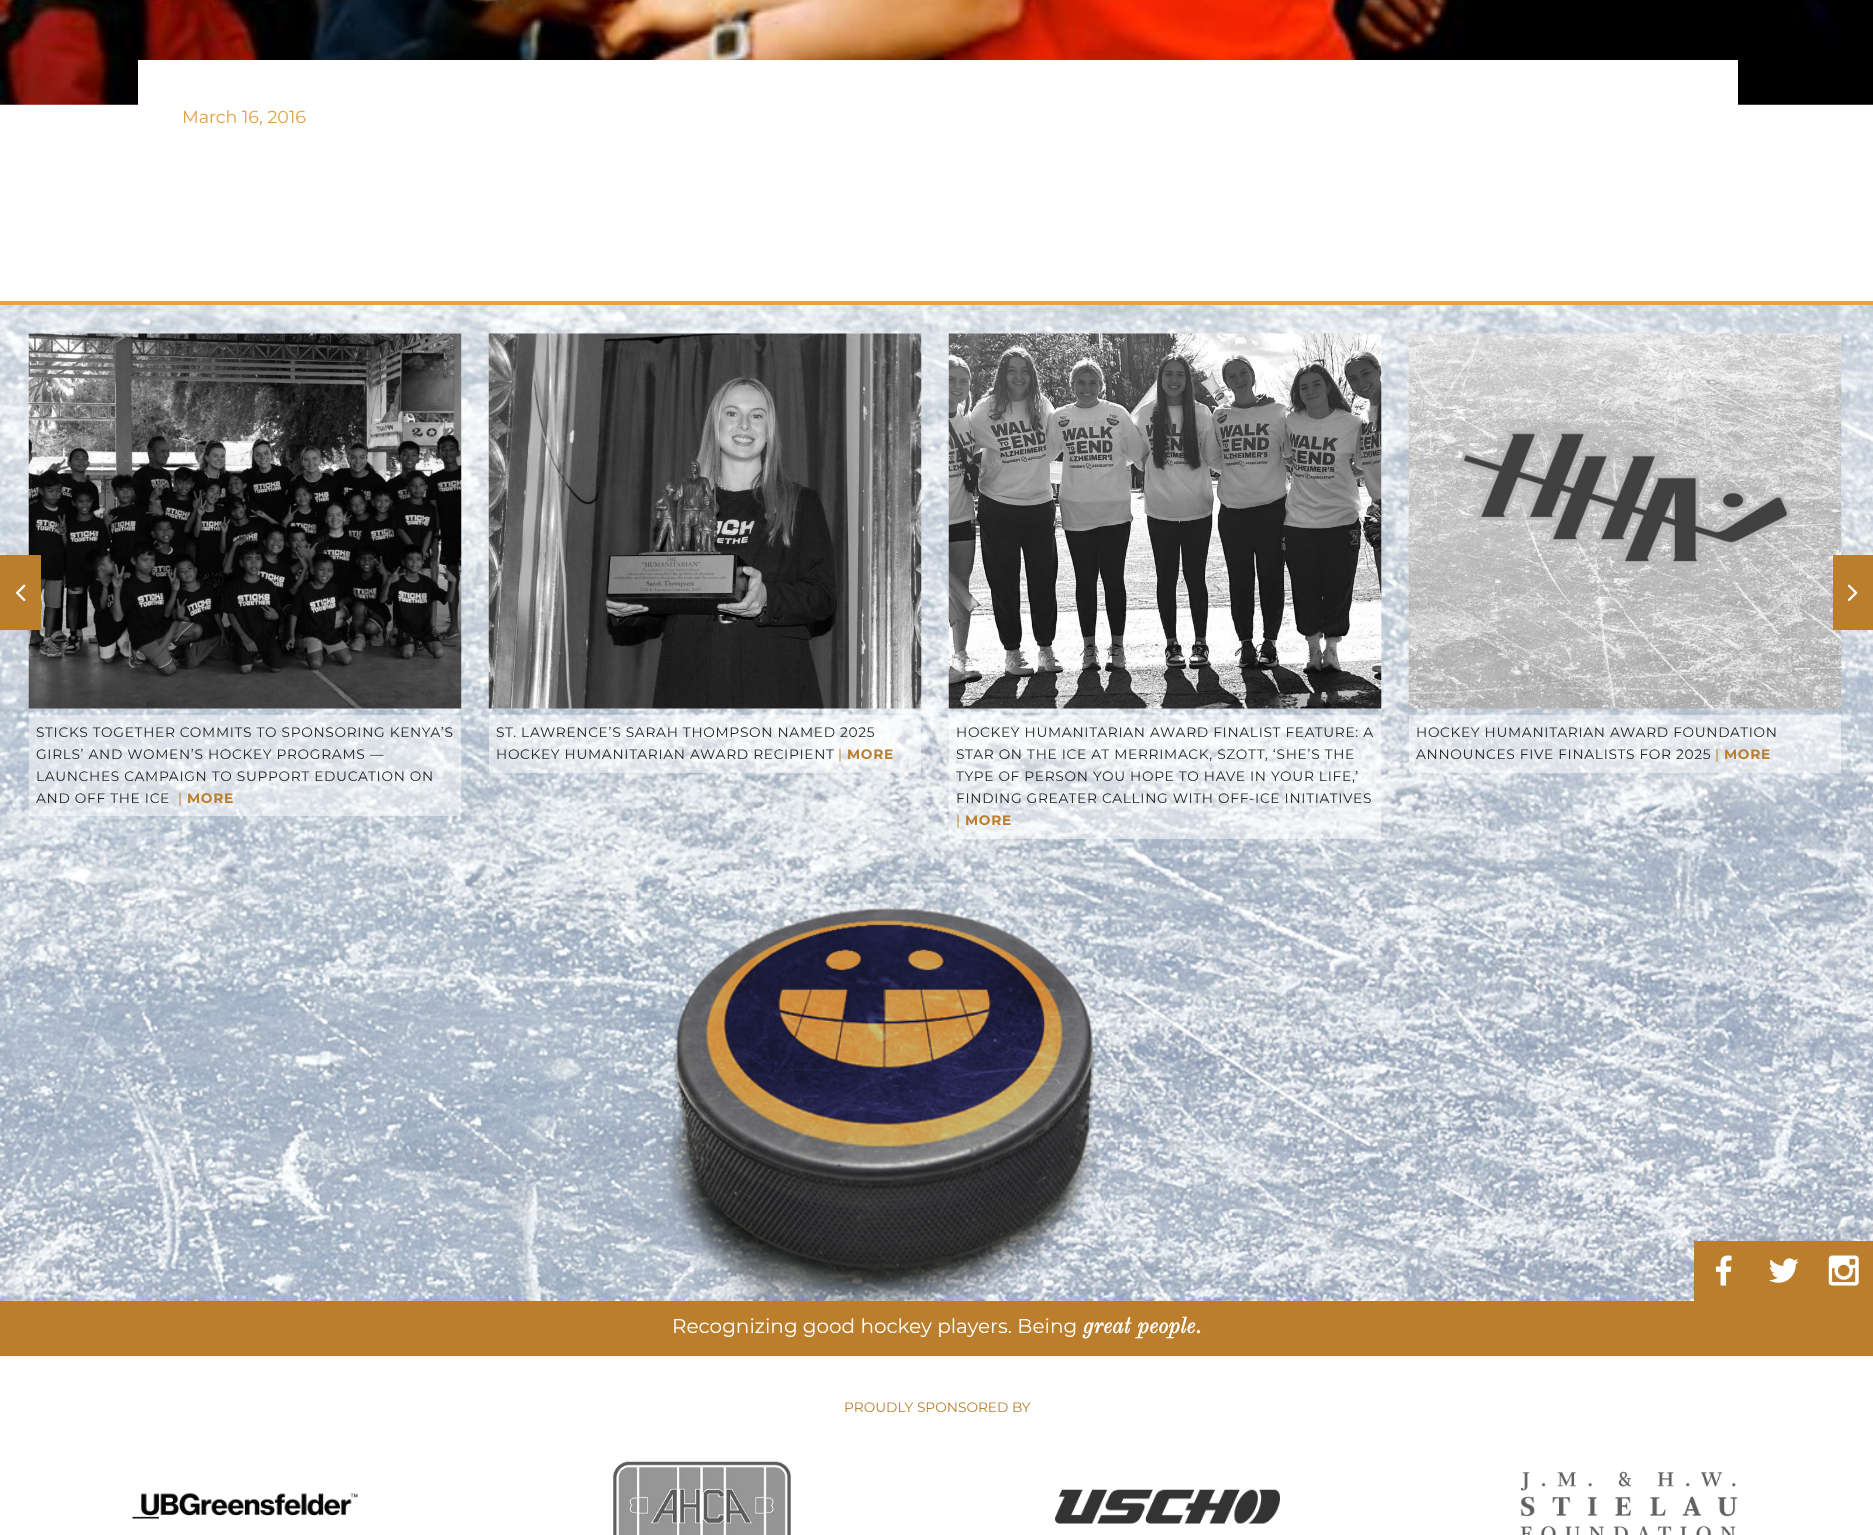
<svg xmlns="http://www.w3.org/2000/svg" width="1873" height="1535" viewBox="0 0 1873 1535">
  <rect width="100%" height="100%" fill="rgb(255,255,255)"/>
  <image x="0" y="0" width="1873" height="105" href="pic1.png"/>
  <rect x="138" y="60" width="1600" height="45" fill="rgb(255,255,255)"/>
  <text x="182" y="123" font-family="Montserrat" font-size="17.5" fill="rgb(228,161,70)">March 16, 2016</text>
  <image x="0" y="305" width="1873" height="996" href="pic2.png"/>
  <rect x="0" y="301" width="1873" height="4" fill="rgb(228,161,70)"/>
  <image x="28" y="333" width="434" height="376" href="pic5.png"/>
  <rect x="0" y="555" width="41" height="75" fill="rgb(186,126,45)"/>
  <image x="15" y="584" width="11" height="18" href="pic3.png"/>
  <image x="1408" y="333" width="434" height="376" href="pic8.png"/>
  <rect x="1833" y="555" width="40" height="75" fill="rgb(186,126,45)"/>
  <image x="1847" y="584" width="11" height="18" href="pic4.png"/>
  <rect x="29" y="715" width="432" height="101" fill="rgba(255,255,255,0.5)"/>
  <g font-family="Montserrat" font-size="13.75" letter-spacing="0.7" fill="rgb(34,34,34)">
    <text>
      <tspan x="36" y="737">STICKS TOGETHER COMMITS TO SPONSORING KENYA’S</tspan>
      <tspan x="36" y="759">GIRLS’ AND WOMEN’S HOCKEY PROGRAMS —</tspan>
      <tspan x="36" y="781">LAUNCHES CAMPAIGN TO SUPPORT EDUCATION ON</tspan>
      <tspan x="36" y="803">AND OFF THE ICE</tspan>
    </text>
  </g>
  <text x="178" y="803" font-family="Montserrat" font-size="13.75" letter-spacing="0.7" fill="rgb(186,126,45)">|</text>
  <text x="187" y="803" font-family="Montserrat" font-size="13.75" font-weight="bold" letter-spacing="0.7" fill="rgb(186,126,45)">MORE</text>
  <image x="488" y="333" width="434" height="376" href="pic6.png"/>
  <rect x="489" y="715" width="432" height="58" fill="rgba(255,255,255,0.5)"/>
  <g font-family="Montserrat" font-size="13.75" letter-spacing="0.7" fill="rgb(34,34,34)">
    <text>
      <tspan x="496" y="737">ST. LAWRENCE’S SARAH THOMPSON NAMED 2025</tspan>
      <tspan x="496" y="759">HOCKEY HUMANITARIAN AWARD RECIPIENT</tspan>
    </text>
  </g>
  <text x="838" y="759" font-family="Montserrat" font-size="13.75" letter-spacing="0.7" fill="rgb(186,126,45)">|</text>
  <text x="847" y="759" font-family="Montserrat" font-size="13.75" font-weight="bold" letter-spacing="0.7" fill="rgb(186,126,45)">MORE</text>
  <image x="948" y="333" width="434" height="376" href="pic7.png"/>
  <rect x="949" y="715" width="432" height="124" fill="rgba(255,255,255,0.5)"/>
  <g font-family="Montserrat" font-size="13.75" letter-spacing="0.7" fill="rgb(34,34,34)">
    <text>
      <tspan x="956" y="737">HOCKEY HUMANITARIAN AWARD FINALIST FEATURE: A</tspan>
      <tspan x="956" y="759">STAR ON THE ICE AT MERRIMACK, SZOTT, ‘SHE’S THE</tspan>
      <tspan x="956" y="781">TYPE OF PERSON YOU HOPE TO HAVE IN YOUR LIFE,’</tspan>
      <tspan x="956" y="803">FINDING GREATER CALLING WITH OFF-ICE INITIATIVES</tspan>
    </text>
  </g>
  <text x="956" y="825" font-family="Montserrat" font-size="13.75" letter-spacing="0.7" fill="rgb(186,126,45)">|</text>
  <text x="965" y="825" font-family="Montserrat" font-size="13.75" font-weight="bold" letter-spacing="0.7" fill="rgb(186,126,45)">MORE</text>
  <rect x="1409" y="715" width="432" height="58" fill="rgba(255,255,255,0.5)"/>
  <g font-family="Montserrat" font-size="13.75" letter-spacing="0.7" fill="rgb(34,34,34)">
    <text>
      <tspan x="1416" y="737">HOCKEY HUMANITARIAN AWARD FOUNDATION</tspan>
      <tspan x="1416" y="759">ANNOUNCES FIVE FINALISTS FOR 2025</tspan>
    </text>
  </g>
  <text x="1715" y="759" font-family="Montserrat" font-size="13.75" letter-spacing="0.7" fill="rgb(186,126,45)">|</text>
  <text x="1724" y="759" font-family="Montserrat" font-size="13.75" font-weight="bold" letter-spacing="0.7" fill="rgb(186,126,45)">MORE</text>
  <rect x="1694" y="1241" width="179" height="60" fill="rgb(186,126,45)"/>
  <image x="1715" y="1255" width="17" height="31" href="pic9.png"/>
  <image x="1769" y="1258" width="30" height="25" href="pic10.png"/>
  <image x="1828" y="1255" width="31" height="31" href="pic11.png"/>
  <rect x="0" y="1301" width="1873" height="55" fill="rgb(186,126,45)"/>
  <text x="672" y="1333" font-family="Montserrat" font-size="20" fill="rgb(255,255,255)">Recognizing good hockey players. Being</text>
  <text x="1083" y="1333" font-family="Old Standard TT" font-size="22" font-weight="bold" font-style="italic" fill="rgb(255,255,255)">great people.</text>
  <text x="844" y="1412" font-family="Montserrat" font-size="13.75" fill="rgb(186,126,45)">PROUDLY SPONSORED BY</text>
  <image x="132" y="1493" width="226" height="26" href="pic12.png"/>
  <image x="612" y="1461" width="179" height="74" href="pic13.png"/>
  <image x="1055" y="1489" width="225" height="35" href="pic14.png"/>
  <image x="1520" y="1471" width="218" height="64" href="pic15.png"/>
</svg>
